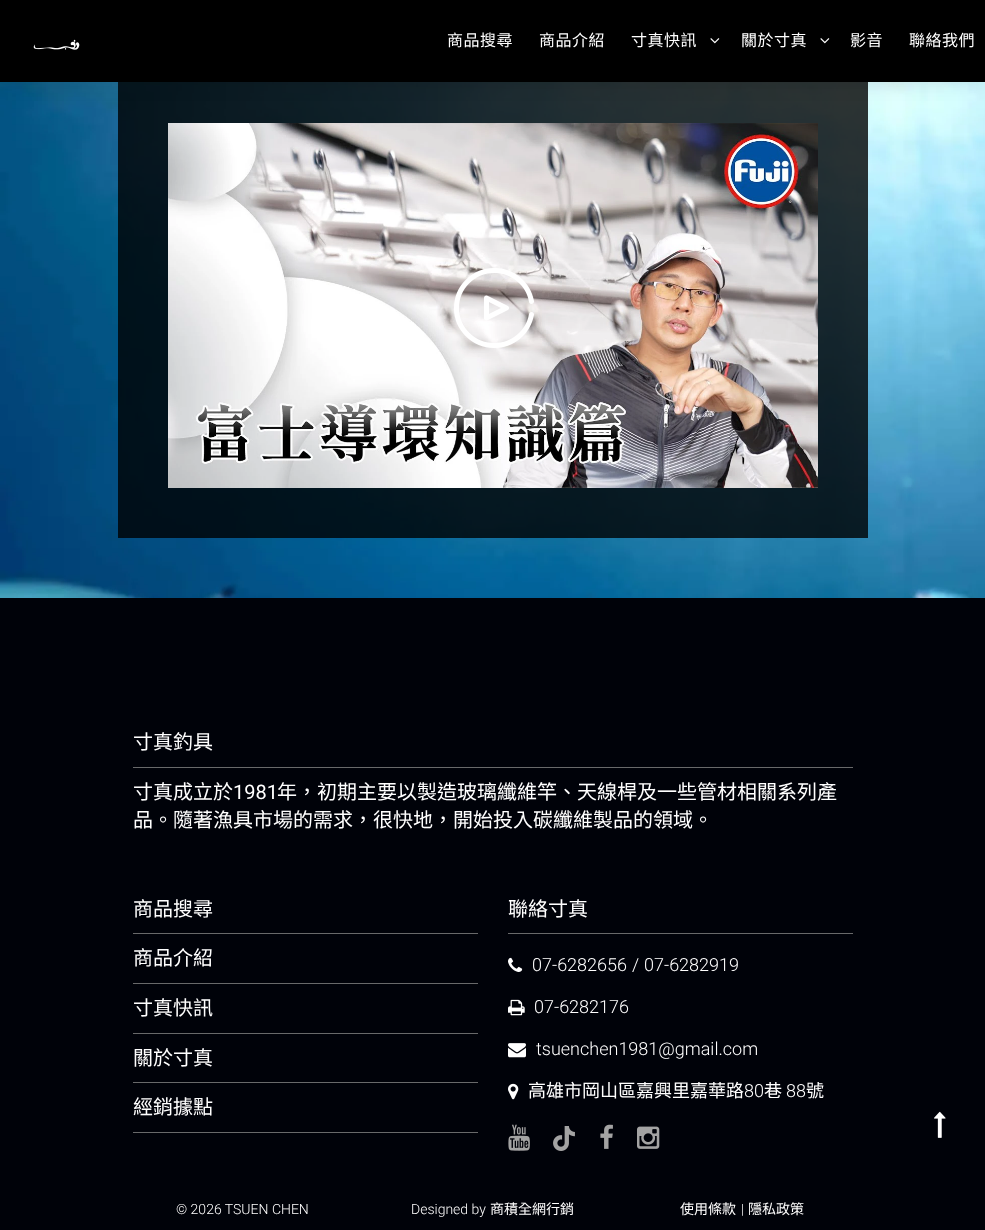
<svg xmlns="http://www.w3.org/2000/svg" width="985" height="1230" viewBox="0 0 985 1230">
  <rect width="100%" height="100%" fill="rgb(255,255,255)"/>
  <image x="0" y="82" width="985" height="516" href="pic3.png"/>
  <rect x="118" y="82" width="750" height="456" fill="rgba(0,0,0,0.8)"/>
  <rect x="0" y="0" width="985" height="82" fill="rgba(0,0,0,0.09)" filter="blur(10px)"/>
  <rect x="0" y="0" width="985" height="82" fill="rgb(0,0,0)"/>
  <image x="33" y="39" width="47" height="11" href="pic1.png"/>
  <g font-family="Noto Sans CJK TC" font-size="16" letter-spacing="0.5" fill="rgb(255,255,255)">
    <text x="447" y="46">商品搜尋</text>
    <text x="539" y="46">商品介紹</text>
    <text x="631" y="46">寸真快訊</text>
  </g>
  <image x="710" y="38" width="10" height="6" href="pic2.png"/>
  <text x="741" y="46" font-family="Noto Sans CJK TC" font-size="16" letter-spacing="0.5" fill="rgb(255,255,255)">關於寸真</text>
  <image x="820" y="38" width="10" height="6" href="pic2.png"/>
  <g font-family="Noto Sans CJK TC" font-size="16" letter-spacing="0.5" fill="rgb(255,255,255)">
    <text x="850" y="46">影音</text>
    <text x="909" y="46">聯絡我們</text>
  </g>
  <image x="168" y="123" width="650" height="365" href="pic4.png"/>
  <image x="454" y="268" width="80" height="80" href="pic5.png"/>
  <rect x="0" y="598" width="985" height="632" fill="rgb(0,2,9)"/>
  <rect x="133" y="767" width="720" height="1" fill="rgb(104,105,106)"/>
  <g font-family="Noto Sans CJK TC" font-size="20" fill="rgb(255,255,255)">
    <text x="133" y="749">寸真釣具</text>
    <text x="133" y="799">寸真成立於</text>
  </g>
  <text x="233" y="799" font-family="Roboto" font-size="20" fill="rgb(255,255,255)">1981</text>
  <g font-family="Noto Sans CJK TC" font-size="20" fill="rgb(255,255,255)">
    <text x="277" y="799">年，初期主要以製造玻璃纖維竿、天線桿及一些管材相關系列產</text>
    <text x="133" y="827">品。隨著漁具市場的需求，很快地，開始投入碳纖維製品的領域。</text>
  </g>
  <rect x="133" y="933" width="345" height="1" fill="rgb(104,105,106)"/>
  <text x="133" y="916" font-family="Noto Sans CJK TC" font-size="20" fill="rgb(255,255,255)">商品搜尋</text>
  <rect x="133" y="983" width="345" height="1" fill="rgb(104,105,106)"/>
  <text x="133" y="965" font-family="Noto Sans CJK TC" font-size="20" fill="rgb(255,255,255)">商品介紹</text>
  <rect x="133" y="1033" width="345" height="1" fill="rgb(104,105,106)"/>
  <text x="133" y="1015" font-family="Noto Sans CJK TC" font-size="20" fill="rgb(255,255,255)">寸真快訊</text>
  <rect x="133" y="1082" width="345" height="1" fill="rgb(104,105,106)"/>
  <text x="133" y="1065" font-family="Noto Sans CJK TC" font-size="20" fill="rgb(255,255,255)">關於寸真</text>
  <rect x="133" y="1132" width="345" height="1" fill="rgb(104,105,106)"/>
  <text x="133" y="1114" font-family="Noto Sans CJK TC" font-size="20" fill="rgb(255,255,255)">經銷據點</text>
  <rect x="508" y="933" width="345" height="1" fill="rgb(104,105,106)"/>
  <text x="508" y="916" font-family="Noto Sans CJK TC" font-size="20" fill="rgb(255,255,255)">聯絡寸真</text>
  <image x="508" y="957" width="15" height="15" href="pic6.png"/>
  <g font-family="Roboto" font-size="18" font-weight="300" fill="rgb(255,255,255)">
    <text x="532" y="971">07-6282656</text>
    <text x="632" y="971">/</text>
    <text x="644" y="971">07-6282919</text>
  </g>
  <image x="508" y="999" width="17" height="17" href="pic7.png"/>
  <text x="534" y="1013" font-family="Roboto" font-size="18" font-weight="300" fill="rgb(255,255,255)">07-6282176</text>
  <image x="508" y="1043" width="18" height="15" href="pic8.png"/>
  <text x="536" y="1055" font-family="Roboto" font-size="18" font-weight="300" fill="rgb(255,255,255)">tsuenchen1981@gmail.com</text>
  <image x="508" y="1083" width="11" height="17" href="pic9.png"/>
  <text x="528" y="1097" font-family="Noto Sans CJK TC" font-size="18" fill="rgb(255,255,255)">高雄市岡山區嘉興里嘉華路</text>
  <text x="744" y="1097" font-family="Roboto" font-size="18" font-weight="300" fill="rgb(255,255,255)">80</text>
  <text x="764" y="1097" font-family="Noto Sans CJK TC" font-size="18" fill="rgb(255,255,255)">巷</text>
  <text x="786" y="1097" font-family="Roboto" font-size="18" font-weight="300" fill="rgb(255,255,255)">88</text>
  <text x="806" y="1097" font-family="Noto Sans CJK TC" font-size="18" fill="rgb(255,255,255)">號</text>
  <image x="508" y="1124" width="22" height="27" href="pic10.png"/>
  <image x="553" y="1126" width="22" height="25" href="pic11.png"/>
  <image x="600" y="1124" width="13" height="25" href="pic12.png"/>
  <image x="637" y="1126" width="23" height="23" href="pic13.png"/>
  <g font-family="Roboto" font-size="14" font-weight="300" fill="rgb(255,255,255)">
    <text x="176" y="1214">© 2026 TSUEN CHEN</text>
    <text x="411" y="1214">Designed by</text>
  </g>
  <g font-family="Noto Sans CJK TC" font-size="14" fill="rgb(255,255,255)">
    <text x="490" y="1214">商積全網行銷</text>
    <text x="680" y="1214">使用條款</text>
  </g>
  <text x="741" y="1214" font-family="Roboto" font-size="14" font-weight="300" fill="rgb(255,255,255)">|</text>
  <text x="748" y="1214" font-family="Noto Sans CJK TC" font-size="14" fill="rgb(255,255,255)">隱私政策</text>
  <image x="934" y="1111" width="12" height="27" href="pic14.png"/>
</svg>
